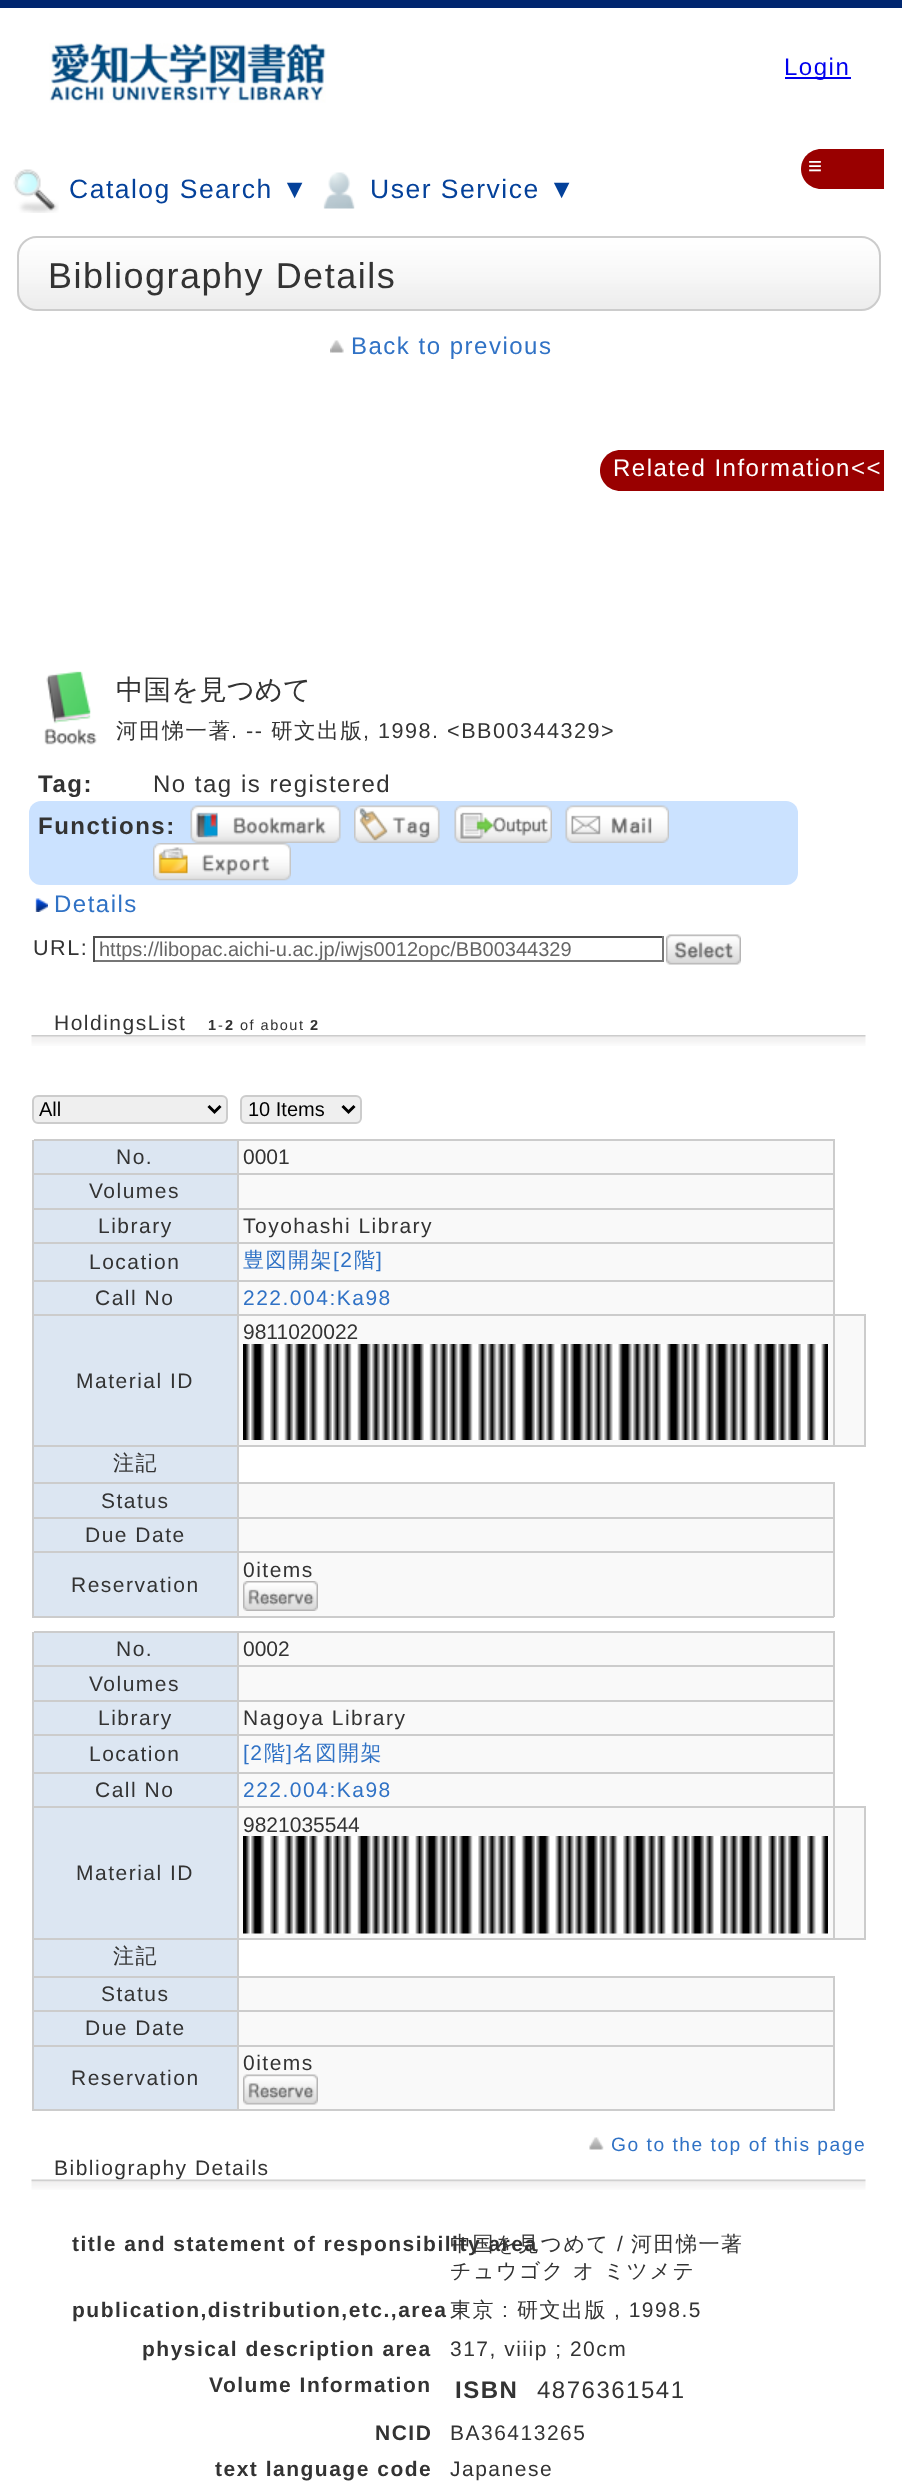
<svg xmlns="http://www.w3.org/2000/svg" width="902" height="2486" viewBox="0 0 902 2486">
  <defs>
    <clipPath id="clip1"><rect x="99" y="938" width="563" height="22"/></clipPath>
  </defs>
  <rect width="100%" height="100%" fill="rgb(255,255,255)"/>
  <rect x="0" y="0" width="902" height="8" fill="rgb(0,38,111)"/>
  <image x="49" y="43" width="277" height="60" href="pic1.png"/>
  <rect x="785" y="77" width="66" height="2" fill="rgb(0,0,238)"/>
  <text x="784" y="75" font-family="Liberation Sans" font-size="24" letter-spacing="1.5" fill="rgb(0,0,238)">Login</text>
  <path d="M821 149H884V189H821C810 189 801 180 801 169C801 158 810 149 821 149Z" fill="rgb(153,0,0)"/>
  <text x="808" y="174" font-family="Liberation Sans" font-size="24" letter-spacing="1.5" fill="rgb(255,255,255)">≡</text>
  <image x="13" y="169" width="46" height="44" href="pic2.png"/>
  <text x="69" y="198" font-family="Liberation Sans" font-size="26.5" letter-spacing="1.5" fill="rgb(4,65,154)">Catalog Search ▼</text>
  <image x="323" y="172" width="32" height="37" href="pic3.png"/>
  <text x="370" y="198" font-family="Liberation Sans" font-size="26.5" letter-spacing="1.5" fill="rgb(4,65,154)">User Service ▼</text>
  <image x="17" y="236" width="863" height="73" href="pic4.png"/>
  <rect x="18" y="237" width="862" height="73" rx="19" fill="none" stroke="rgb(204,204,204)" stroke-width="2"/>
  <text x="48" y="288" font-family="Liberation Sans" font-size="36" letter-spacing="1.5" fill="rgb(51,51,51)">Bibliography Details</text>
  <image x="330" y="340" width="14" height="13" href="pic5.png"/>
  <text x="351" y="354" font-family="Liberation Sans" font-size="24" letter-spacing="1.5" fill="rgb(48,114,197)">Back to previous</text>
  <image x="44" y="671" width="53" height="74" href="pic6.png"/>
  <text x="116" y="699" font-family="WenQuanYi Zen Hei" font-size="27.5" font-weight="500" fill="rgb(51,51,51)">中国を見つめて</text>
  <text x="116" y="738" font-family="WenQuanYi Zen Hei" font-size="21.6" font-weight="500" letter-spacing="1.5" fill="rgb(51,51,51)">河田悌一著</text>
  <text x="231" y="738" font-family="Liberation Sans" font-size="21.6" letter-spacing="1.5" fill="rgb(51,51,51)">. --</text>
  <text x="271" y="738" font-family="WenQuanYi Zen Hei" font-size="21.6" font-weight="500" letter-spacing="1.5" fill="rgb(51,51,51)">研文出版</text>
  <text x="363" y="738" font-family="Liberation Sans" font-size="21.6" letter-spacing="1.5" fill="rgb(51,51,51)">, 1998. &lt;BB00344329&gt;</text>
  <text x="38" y="792" font-family="Liberation Sans" font-size="24" font-weight="bold" letter-spacing="1.5" fill="rgb(51,51,51)">Tag:</text>
  <text x="153" y="792" font-family="Liberation Sans" font-size="24" letter-spacing="1.5" fill="rgb(51,51,51)">No tag is registered</text>
  <rect x="29" y="801" width="769" height="84" rx="12" fill="rgb(203,226,255)"/>
  <text x="38" y="834" font-family="Liberation Sans" font-size="24" font-weight="bold" letter-spacing="1.5" fill="rgb(51,51,51)">Functions:</text>
  <image x="190" y="805" width="151" height="38" href="pic7.png"/>
  <image x="354" y="805" width="86" height="38" href="pic8.png"/>
  <image x="454" y="805" width="98" height="38" href="pic9.png"/>
  <image x="565" y="805" width="104" height="38" href="pic10.png"/>
  <image x="153" y="843" width="138" height="38" href="pic11.png"/>
  <image x="35" y="898" width="13" height="14" href="pic12.png"/>
  <text x="54" y="912" font-family="Liberation Sans" font-size="24" letter-spacing="1.5" fill="rgb(48,114,197)">Details</text>
  <text x="33" y="955" font-family="Liberation Sans" font-size="21.6" letter-spacing="1.5" fill="rgb(51,51,51)">URL:</text>
  <rect x="93" y="936" width="570" height="2" fill="rgb(79,79,79)"/>
  <rect x="662" y="936" width="2" height="26" fill="rgb(118,118,118)"/>
  <rect x="93" y="960" width="570" height="2" fill="rgb(118,118,118)"/>
  <rect x="93" y="936" width="2" height="26" fill="rgb(79,79,79)"/>
  <g clip-path="url(#clip1)">
    <text x="99" y="956" font-family="Liberation Sans" font-size="20" fill="rgb(102,102,102)">https://libopac.aichi-u.ac.jp/iwjs0012opc/BB00344329</text>
  </g>
  <image x="666" y="934" width="75" height="31" href="pic13.png"/>
  <image x="31" y="1035" width="835" height="11" href="pic14.png"/>
  <text x="54" y="1030" font-family="Liberation Sans" font-size="21" letter-spacing="1.5" fill="rgb(51,51,51)">HoldingsList</text>
  <text x="208" y="1030" font-family="Liberation Sans" font-size="14.5" font-weight="bold" letter-spacing="1.5" fill="rgb(51,51,51)">1</text>
  <text x="218" y="1030" font-family="Liberation Sans" font-size="14.5" letter-spacing="1.5" fill="rgb(51,51,51)">-</text>
  <text x="225" y="1030" font-family="Liberation Sans" font-size="14.5" font-weight="bold" letter-spacing="1.5" fill="rgb(51,51,51)">2</text>
  <text x="240" y="1030" font-family="Liberation Sans" font-size="14.5" letter-spacing="1.5" fill="rgb(51,51,51)">of about</text>
  <text x="310" y="1030" font-family="Liberation Sans" font-size="14.5" font-weight="bold" letter-spacing="1.5" fill="rgb(51,51,51)">2</text>
  <rect x="33" y="1096" width="194" height="27" rx="5" fill="rgb(239,239,239)" stroke="rgb(204,204,204)" stroke-width="2"/>
  <path d="M208.5 1106L214.5 1112L220.5 1106" fill="none" stroke="rgb(0,0,0)" stroke-width="3"/>
  <text x="39" y="1116" font-family="Liberation Sans" font-size="20" fill="rgb(0,0,0)">All</text>
  <rect x="241" y="1096" width="120" height="27" rx="5" fill="rgb(239,239,239)" stroke="rgb(204,204,204)" stroke-width="2"/>
  <path d="M342.5 1106L348.5 1112L354.5 1106" fill="none" stroke="rgb(0,0,0)" stroke-width="3"/>
  <text x="248" y="1116" font-family="Liberation Sans" font-size="20" fill="rgb(0,0,0)">10 Items</text>
  <rect x="237" y="1139" width="597" height="2" fill="rgb(204,204,204)"/>
  <rect x="237" y="1173" width="597" height="2" fill="rgb(204,204,204)"/>
  <rect x="237" y="1208" width="597" height="2" fill="rgb(204,204,204)"/>
  <rect x="237" y="1242" width="597" height="2" fill="rgb(204,204,204)"/>
  <rect x="237" y="1280" width="597" height="2" fill="rgb(204,204,204)"/>
  <rect x="833" y="1314" width="33" height="2" fill="rgb(204,204,204)"/>
  <rect x="864" y="1314" width="2" height="132" fill="rgb(204,204,204)"/>
  <rect x="833" y="1445" width="33" height="2" fill="rgb(204,204,204)"/>
  <rect x="833" y="1314" width="2" height="132" fill="rgb(204,204,204)"/>
  <rect x="237" y="1314" width="597" height="2" fill="rgb(204,204,204)"/>
  <rect x="32" y="1445" width="207" height="2" fill="rgb(204,204,204)"/>
  <rect x="237" y="1482" width="597" height="2" fill="rgb(204,204,204)"/>
  <rect x="237" y="1517" width="597" height="2" fill="rgb(204,204,204)"/>
  <rect x="237" y="1551" width="597" height="2" fill="rgb(204,204,204)"/>
  <rect x="833" y="1551" width="2" height="66" fill="rgb(204,204,204)"/>
  <rect x="237" y="1616" width="597" height="2" fill="rgb(204,204,204)"/>
  <rect x="237" y="1551" width="2" height="66" fill="rgb(204,204,204)"/>
  <rect x="32" y="1551" width="207" height="2" fill="rgb(204,204,204)"/>
  <rect x="237" y="1517" width="2" height="36" fill="rgb(204,204,204)"/>
  <rect x="32" y="1517" width="207" height="2" fill="rgb(204,204,204)"/>
  <rect x="237" y="1482" width="2" height="36" fill="rgb(204,204,204)"/>
  <rect x="32" y="1482" width="207" height="2" fill="rgb(204,204,204)"/>
  <rect x="237" y="1445" width="2" height="39" fill="rgb(204,204,204)"/>
  <rect x="237" y="1445" width="597" height="2" fill="rgb(204,204,204)"/>
  <rect x="237" y="1314" width="2" height="132" fill="rgb(204,204,204)"/>
  <rect x="32" y="1314" width="207" height="2" fill="rgb(204,204,204)"/>
  <rect x="237" y="1280" width="2" height="36" fill="rgb(204,204,204)"/>
  <rect x="32" y="1280" width="207" height="2" fill="rgb(204,204,204)"/>
  <rect x="237" y="1242" width="2" height="39" fill="rgb(204,204,204)"/>
  <rect x="32" y="1242" width="207" height="2" fill="rgb(204,204,204)"/>
  <rect x="237" y="1208" width="2" height="36" fill="rgb(204,204,204)"/>
  <rect x="32" y="1208" width="207" height="2" fill="rgb(204,204,204)"/>
  <rect x="237" y="1173" width="2" height="36" fill="rgb(204,204,204)"/>
  <rect x="32" y="1173" width="207" height="2" fill="rgb(204,204,204)"/>
  <rect x="237" y="1139" width="2" height="36" fill="rgb(204,204,204)"/>
  <rect x="237" y="1139" width="2" height="1" fill="rgb(255,255,255)"/>
  <rect x="32" y="1616" width="207" height="2" fill="rgb(204,204,204)"/>
  <rect x="32" y="1551" width="2" height="66" fill="rgb(204,204,204)"/>
  <rect x="32" y="1517" width="2" height="36" fill="rgb(204,204,204)"/>
  <rect x="32" y="1482" width="2" height="36" fill="rgb(204,204,204)"/>
  <rect x="32" y="1445" width="2" height="39" fill="rgb(204,204,204)"/>
  <rect x="32" y="1314" width="2" height="132" fill="rgb(204,204,204)"/>
  <rect x="32" y="1280" width="2" height="36" fill="rgb(204,204,204)"/>
  <rect x="32" y="1242" width="2" height="39" fill="rgb(204,204,204)"/>
  <rect x="32" y="1208" width="2" height="36" fill="rgb(204,204,204)"/>
  <rect x="32" y="1139" width="2" height="70" fill="rgb(204,204,204)"/>
  <rect x="32" y="1139" width="207" height="2" fill="rgb(204,204,204)"/>
  <rect x="32" y="1139" width="2" height="1" fill="rgb(255,255,255)"/>
  <rect x="34" y="1141" width="203" height="32" fill="rgb(220,230,242)"/>
  <text x="116" y="1164" font-family="Liberation Sans" font-size="21" letter-spacing="1.5" fill="rgb(51,51,51)">No.</text>
  <rect x="239" y="1141" width="594" height="32" fill="rgb(249,249,249)"/>
  <rect x="833" y="1280" width="2" height="36" fill="rgb(204,204,204)"/>
  <rect x="833" y="1242" width="2" height="39" fill="rgb(204,204,204)"/>
  <rect x="833" y="1208" width="2" height="36" fill="rgb(204,204,204)"/>
  <rect x="833" y="1173" width="2" height="36" fill="rgb(204,204,204)"/>
  <rect x="833" y="1139" width="2" height="36" fill="rgb(204,204,204)"/>
  <text x="243" y="1164" font-family="Liberation Sans" font-size="21" fill="rgb(51,51,51)">0001</text>
  <rect x="34" y="1175" width="203" height="33" fill="rgb(220,230,242)"/>
  <text x="89" y="1198" font-family="Liberation Sans" font-size="21" letter-spacing="1.5" fill="rgb(51,51,51)">Volumes</text>
  <rect x="239" y="1175" width="594" height="33" fill="rgb(249,249,249)"/>
  <rect x="34" y="1210" width="203" height="32" fill="rgb(220,230,242)"/>
  <text x="98" y="1233" font-family="Liberation Sans" font-size="21" letter-spacing="1.5" fill="rgb(51,51,51)">Library</text>
  <rect x="239" y="1210" width="594" height="32" fill="rgb(249,249,249)"/>
  <text x="243" y="1233" font-family="Liberation Sans" font-size="21" letter-spacing="1.5" fill="rgb(51,51,51)">Toyohashi Library</text>
  <rect x="34" y="1244" width="203" height="36" fill="rgb(220,230,242)"/>
  <text x="89" y="1269" font-family="Liberation Sans" font-size="21" letter-spacing="1.5" fill="rgb(51,51,51)">Location</text>
  <rect x="239" y="1244" width="594" height="36" fill="rgb(249,249,249)"/>
  <text x="243" y="1267" font-family="WenQuanYi Zen Hei" font-size="21" font-weight="500" letter-spacing="1.5" fill="rgb(48,114,197)">豊図開架</text>
  <text x="333" y="1267" font-family="Liberation Sans" font-size="21" letter-spacing="1.5" fill="rgb(48,114,197)">[2</text>
  <text x="354" y="1267" font-family="WenQuanYi Zen Hei" font-size="21" font-weight="500" letter-spacing="1.5" fill="rgb(48,114,197)">階</text>
  <text x="376" y="1267" font-family="Liberation Sans" font-size="21" letter-spacing="1.5" fill="rgb(48,114,197)">]</text>
  <rect x="34" y="1282" width="203" height="32" fill="rgb(220,230,242)"/>
  <text x="95" y="1305" font-family="Liberation Sans" font-size="21" letter-spacing="1.5" fill="rgb(51,51,51)">Call No</text>
  <rect x="239" y="1282" width="594" height="32" fill="rgb(249,249,249)"/>
  <text x="243" y="1305" font-family="Liberation Sans" font-size="21" letter-spacing="1.5" fill="rgb(48,114,197)">222.004:Ka98</text>
  <rect x="239" y="1316" width="594" height="129" fill="rgb(249,249,249)"/>
  <text x="243" y="1339" font-family="Liberation Sans" font-size="21" fill="rgb(51,51,51)">9811020022</text>
  <image x="243" y="1344" width="585" height="96" href="pic15.png"/>
  <rect x="835" y="1316" width="29" height="129" fill="rgb(249,249,249)"/>
  <rect x="34" y="1316" width="203" height="129" fill="rgb(220,230,242)"/>
  <text x="76" y="1388" font-family="Liberation Sans" font-size="21" letter-spacing="1.5" fill="rgb(51,51,51)">Material ID</text>
  <rect x="34" y="1447" width="203" height="35" fill="rgb(220,230,242)"/>
  <text x="113" y="1470" font-family="WenQuanYi Zen Hei" font-size="21" font-weight="500" letter-spacing="1.5" fill="rgb(51,51,51)">注記</text>
  <rect x="34" y="1484" width="203" height="33" fill="rgb(220,230,242)"/>
  <text x="101" y="1508" font-family="Liberation Sans" font-size="21" letter-spacing="1.5" fill="rgb(51,51,51)">Status</text>
  <rect x="239" y="1484" width="594" height="33" fill="rgb(249,249,249)"/>
  <rect x="833" y="1517" width="2" height="36" fill="rgb(204,204,204)"/>
  <rect x="833" y="1482" width="2" height="36" fill="rgb(204,204,204)"/>
  <rect x="34" y="1519" width="203" height="32" fill="rgb(220,230,242)"/>
  <text x="85" y="1542" font-family="Liberation Sans" font-size="21" letter-spacing="1.5" fill="rgb(51,51,51)">Due Date</text>
  <rect x="239" y="1519" width="594" height="32" fill="rgb(249,249,249)"/>
  <rect x="239" y="1553" width="594" height="63" fill="rgb(249,249,249)"/>
  <text x="243" y="1577" font-family="Liberation Sans" font-size="21" letter-spacing="1.5" fill="rgb(51,51,51)">0items</text>
  <image x="243" y="1581" width="75" height="30" href="pic16.png"/>
  <rect x="34" y="1553" width="203" height="63" fill="rgb(220,230,242)"/>
  <text x="71" y="1592" font-family="Liberation Sans" font-size="21" letter-spacing="1.5" fill="rgb(51,51,51)">Reservation</text>
  <rect x="237" y="1631" width="597" height="2" fill="rgb(204,204,204)"/>
  <rect x="237" y="1665" width="597" height="2" fill="rgb(204,204,204)"/>
  <rect x="237" y="1700" width="597" height="2" fill="rgb(204,204,204)"/>
  <rect x="237" y="1734" width="597" height="2" fill="rgb(204,204,204)"/>
  <rect x="237" y="1772" width="597" height="2" fill="rgb(204,204,204)"/>
  <rect x="833" y="1806" width="33" height="2" fill="rgb(204,204,204)"/>
  <rect x="864" y="1806" width="2" height="134" fill="rgb(204,204,204)"/>
  <rect x="833" y="1938" width="33" height="2" fill="rgb(204,204,204)"/>
  <rect x="833" y="1806" width="2" height="134" fill="rgb(204,204,204)"/>
  <rect x="237" y="1806" width="597" height="2" fill="rgb(204,204,204)"/>
  <rect x="32" y="1938" width="207" height="2" fill="rgb(204,204,204)"/>
  <rect x="237" y="1976" width="597" height="2" fill="rgb(204,204,204)"/>
  <rect x="237" y="2010" width="597" height="2" fill="rgb(204,204,204)"/>
  <rect x="237" y="2045" width="597" height="2" fill="rgb(204,204,204)"/>
  <rect x="833" y="2045" width="2" height="66" fill="rgb(204,204,204)"/>
  <rect x="237" y="2109" width="597" height="2" fill="rgb(204,204,204)"/>
  <rect x="237" y="2045" width="2" height="66" fill="rgb(204,204,204)"/>
  <rect x="32" y="2045" width="207" height="2" fill="rgb(204,204,204)"/>
  <rect x="237" y="2010" width="2" height="36" fill="rgb(204,204,204)"/>
  <rect x="32" y="2010" width="207" height="2" fill="rgb(204,204,204)"/>
  <rect x="237" y="1976" width="2" height="36" fill="rgb(204,204,204)"/>
  <rect x="32" y="1976" width="207" height="2" fill="rgb(204,204,204)"/>
  <rect x="237" y="1938" width="2" height="39" fill="rgb(204,204,204)"/>
  <rect x="237" y="1938" width="597" height="2" fill="rgb(204,204,204)"/>
  <rect x="237" y="1806" width="2" height="134" fill="rgb(204,204,204)"/>
  <rect x="32" y="1806" width="207" height="2" fill="rgb(204,204,204)"/>
  <rect x="237" y="1772" width="2" height="36" fill="rgb(204,204,204)"/>
  <rect x="32" y="1772" width="207" height="2" fill="rgb(204,204,204)"/>
  <rect x="237" y="1734" width="2" height="39" fill="rgb(204,204,204)"/>
  <rect x="32" y="1734" width="207" height="2" fill="rgb(204,204,204)"/>
  <rect x="237" y="1700" width="2" height="36" fill="rgb(204,204,204)"/>
  <rect x="32" y="1700" width="207" height="2" fill="rgb(204,204,204)"/>
  <rect x="237" y="1665" width="2" height="36" fill="rgb(204,204,204)"/>
  <rect x="32" y="1665" width="207" height="2" fill="rgb(204,204,204)"/>
  <rect x="237" y="1631" width="2" height="36" fill="rgb(204,204,204)"/>
  <rect x="237" y="1631" width="2" height="1" fill="rgb(255,255,255)"/>
  <rect x="32" y="2109" width="207" height="2" fill="rgb(204,204,204)"/>
  <rect x="32" y="2045" width="2" height="66" fill="rgb(204,204,204)"/>
  <rect x="32" y="2010" width="2" height="36" fill="rgb(204,204,204)"/>
  <rect x="32" y="1976" width="2" height="36" fill="rgb(204,204,204)"/>
  <rect x="32" y="1938" width="2" height="39" fill="rgb(204,204,204)"/>
  <rect x="32" y="1806" width="2" height="134" fill="rgb(204,204,204)"/>
  <rect x="32" y="1772" width="2" height="36" fill="rgb(204,204,204)"/>
  <rect x="32" y="1734" width="2" height="39" fill="rgb(204,204,204)"/>
  <rect x="32" y="1700" width="2" height="36" fill="rgb(204,204,204)"/>
  <rect x="32" y="1631" width="2" height="70" fill="rgb(204,204,204)"/>
  <rect x="32" y="1631" width="207" height="2" fill="rgb(204,204,204)"/>
  <rect x="32" y="1631" width="2" height="1" fill="rgb(255,255,255)"/>
  <rect x="34" y="1633" width="203" height="32" fill="rgb(220,230,242)"/>
  <text x="116" y="1656" font-family="Liberation Sans" font-size="21" letter-spacing="1.5" fill="rgb(51,51,51)">No.</text>
  <rect x="239" y="1633" width="594" height="32" fill="rgb(249,249,249)"/>
  <rect x="833" y="1772" width="2" height="36" fill="rgb(204,204,204)"/>
  <rect x="833" y="1734" width="2" height="39" fill="rgb(204,204,204)"/>
  <rect x="833" y="1700" width="2" height="36" fill="rgb(204,204,204)"/>
  <rect x="833" y="1665" width="2" height="36" fill="rgb(204,204,204)"/>
  <rect x="833" y="1631" width="2" height="36" fill="rgb(204,204,204)"/>
  <text x="243" y="1656" font-family="Liberation Sans" font-size="21" fill="rgb(51,51,51)">0002</text>
  <rect x="34" y="1667" width="203" height="33" fill="rgb(220,230,242)"/>
  <text x="89" y="1691" font-family="Liberation Sans" font-size="21" letter-spacing="1.5" fill="rgb(51,51,51)">Volumes</text>
  <rect x="239" y="1667" width="594" height="33" fill="rgb(249,249,249)"/>
  <rect x="34" y="1702" width="203" height="32" fill="rgb(220,230,242)"/>
  <text x="98" y="1725" font-family="Liberation Sans" font-size="21" letter-spacing="1.5" fill="rgb(51,51,51)">Library</text>
  <rect x="239" y="1702" width="594" height="32" fill="rgb(249,249,249)"/>
  <text x="243" y="1725" font-family="Liberation Sans" font-size="21" letter-spacing="1.5" fill="rgb(51,51,51)">Nagoya Library</text>
  <rect x="34" y="1736" width="203" height="36" fill="rgb(220,230,242)"/>
  <text x="89" y="1761" font-family="Liberation Sans" font-size="21" letter-spacing="1.5" fill="rgb(51,51,51)">Location</text>
  <rect x="239" y="1736" width="594" height="36" fill="rgb(249,249,249)"/>
  <text x="243" y="1760" font-family="Liberation Sans" font-size="21" letter-spacing="1.5" fill="rgb(48,114,197)">[2</text>
  <text x="264" y="1760" font-family="WenQuanYi Zen Hei" font-size="21" font-weight="500" letter-spacing="1.5" fill="rgb(48,114,197)">階</text>
  <text x="286" y="1760" font-family="Liberation Sans" font-size="21" letter-spacing="1.5" fill="rgb(48,114,197)">]</text>
  <text x="293" y="1760" font-family="WenQuanYi Zen Hei" font-size="21" font-weight="500" letter-spacing="1.5" fill="rgb(48,114,197)">名図開架</text>
  <rect x="34" y="1774" width="203" height="32" fill="rgb(220,230,242)"/>
  <text x="95" y="1797" font-family="Liberation Sans" font-size="21" letter-spacing="1.5" fill="rgb(51,51,51)">Call No</text>
  <rect x="239" y="1774" width="594" height="32" fill="rgb(249,249,249)"/>
  <text x="243" y="1797" font-family="Liberation Sans" font-size="21" letter-spacing="1.5" fill="rgb(48,114,197)">222.004:Ka98</text>
  <rect x="239" y="1808" width="594" height="130" fill="rgb(249,249,249)"/>
  <text x="243" y="1832" font-family="Liberation Sans" font-size="21" fill="rgb(51,51,51)">9821035544</text>
  <image x="243" y="1836" width="585" height="98" href="pic17.png"/>
  <rect x="835" y="1808" width="29" height="130" fill="rgb(249,249,249)"/>
  <rect x="34" y="1808" width="203" height="130" fill="rgb(220,230,242)"/>
  <text x="76" y="1880" font-family="Liberation Sans" font-size="21" letter-spacing="1.5" fill="rgb(51,51,51)">Material ID</text>
  <rect x="34" y="1940" width="203" height="36" fill="rgb(220,230,242)"/>
  <text x="113" y="1963" font-family="WenQuanYi Zen Hei" font-size="21" font-weight="500" letter-spacing="1.5" fill="rgb(51,51,51)">注記</text>
  <rect x="34" y="1978" width="203" height="32" fill="rgb(220,230,242)"/>
  <text x="101" y="2001" font-family="Liberation Sans" font-size="21" letter-spacing="1.5" fill="rgb(51,51,51)">Status</text>
  <rect x="239" y="1978" width="594" height="32" fill="rgb(249,249,249)"/>
  <rect x="833" y="2010" width="2" height="36" fill="rgb(204,204,204)"/>
  <rect x="833" y="1976" width="2" height="36" fill="rgb(204,204,204)"/>
  <rect x="34" y="2012" width="203" height="33" fill="rgb(220,230,242)"/>
  <text x="85" y="2035" font-family="Liberation Sans" font-size="21" letter-spacing="1.5" fill="rgb(51,51,51)">Due Date</text>
  <rect x="239" y="2012" width="594" height="33" fill="rgb(249,249,249)"/>
  <rect x="239" y="2047" width="594" height="62" fill="rgb(249,249,249)"/>
  <text x="243" y="2070" font-family="Liberation Sans" font-size="21" letter-spacing="1.5" fill="rgb(51,51,51)">0items</text>
  <image x="243" y="2074" width="75" height="31" href="pic18.png"/>
  <rect x="34" y="2047" width="203" height="62" fill="rgb(220,230,242)"/>
  <text x="71" y="2085" font-family="Liberation Sans" font-size="21" letter-spacing="1.5" fill="rgb(51,51,51)">Reservation</text>
  <image x="589" y="2137" width="15" height="13" href="pic19.png"/>
  <text x="611" y="2151" font-family="Liberation Sans" font-size="19.25" letter-spacing="1.5" fill="rgb(48,114,197)">Go to the top of this page</text>
  <image x="31" y="2179" width="835" height="11" href="pic20.png"/>
  <text x="54" y="2175" font-family="Liberation Sans" font-size="21" letter-spacing="1.5" fill="rgb(51,51,51)">Bibliography Details</text>
  <text x="72" y="2251" font-family="Liberation Sans" font-size="21" font-weight="bold" letter-spacing="1.5" fill="rgb(51,51,51)">title and statement of responsibility area</text>
  <text x="450" y="2251" font-family="WenQuanYi Zen Hei" font-size="21" font-weight="500" letter-spacing="1.5" fill="rgb(51,51,51)">中国を見つめて</text>
  <text x="617" y="2251" font-family="Liberation Sans" font-size="21" letter-spacing="1.5" fill="rgb(51,51,51)">/</text>
  <g font-family="WenQuanYi Zen Hei" font-size="21" font-weight="500" letter-spacing="1.5" fill="rgb(51,51,51)">
    <text x="631" y="2251">河田悌一著</text>
    <text x="450" y="2278">チュウゴク オ ミツメテ</text>
  </g>
  <text x="72" y="2317" font-family="Liberation Sans" font-size="21" font-weight="bold" letter-spacing="1.5" fill="rgb(51,51,51)">publication,distribution,etc.,area</text>
  <text x="450" y="2317" font-family="WenQuanYi Zen Hei" font-size="21" font-weight="500" letter-spacing="1.5" fill="rgb(51,51,51)">東京</text>
  <text x="502" y="2317" font-family="Liberation Sans" font-size="21" letter-spacing="1.5" fill="rgb(51,51,51)">:</text>
  <text x="517" y="2317" font-family="WenQuanYi Zen Hei" font-size="21" font-weight="500" letter-spacing="1.5" fill="rgb(51,51,51)">研文出版</text>
  <text x="614" y="2317" font-family="Liberation Sans" font-size="21" letter-spacing="1.5" fill="rgb(51,51,51)">, 1998.5</text>
  <text x="142" y="2356" font-family="Liberation Sans" font-size="21" font-weight="bold" letter-spacing="1.5" fill="rgb(51,51,51)">physical description area</text>
  <text x="450" y="2356" font-family="Liberation Sans" font-size="21" letter-spacing="1.5" fill="rgb(51,51,51)">317, viiip ; 20cm</text>
  <text x="209" y="2392" font-family="Liberation Sans" font-size="21" font-weight="bold" letter-spacing="1.5" fill="rgb(51,51,51)">Volume Information</text>
  <text x="455" y="2398" font-family="Liberation Sans" font-size="24" font-weight="bold" letter-spacing="1.5" fill="rgb(51,51,51)">ISBN</text>
  <text x="537" y="2398" font-family="Liberation Sans" font-size="24" letter-spacing="1.5" fill="rgb(51,51,51)">4876361541</text>
  <text x="375" y="2440" font-family="Liberation Sans" font-size="21" font-weight="bold" letter-spacing="1.5" fill="rgb(51,51,51)">NCID</text>
  <text x="450" y="2440" font-family="Liberation Sans" font-size="21" letter-spacing="1.5" fill="rgb(51,51,51)">BA36413265</text>
  <text x="215" y="2476" font-family="Liberation Sans" font-size="21" font-weight="bold" letter-spacing="1.5" fill="rgb(51,51,51)">text language code</text>
  <text x="450" y="2476" font-family="Liberation Sans" font-size="21" letter-spacing="1.5" fill="rgb(51,51,51)">Japanese</text>
  <path d="M620.5 450H884V491H620.5C609 491 600 482 600 470.5C600 459 609 450 620.5 450Z" fill="rgb(153,0,0)"/>
  <text x="613" y="476" font-family="Liberation Sans" font-size="24" letter-spacing="1.5" fill="rgb(255,255,255)">Related Information&lt;&lt;</text>
</svg>
